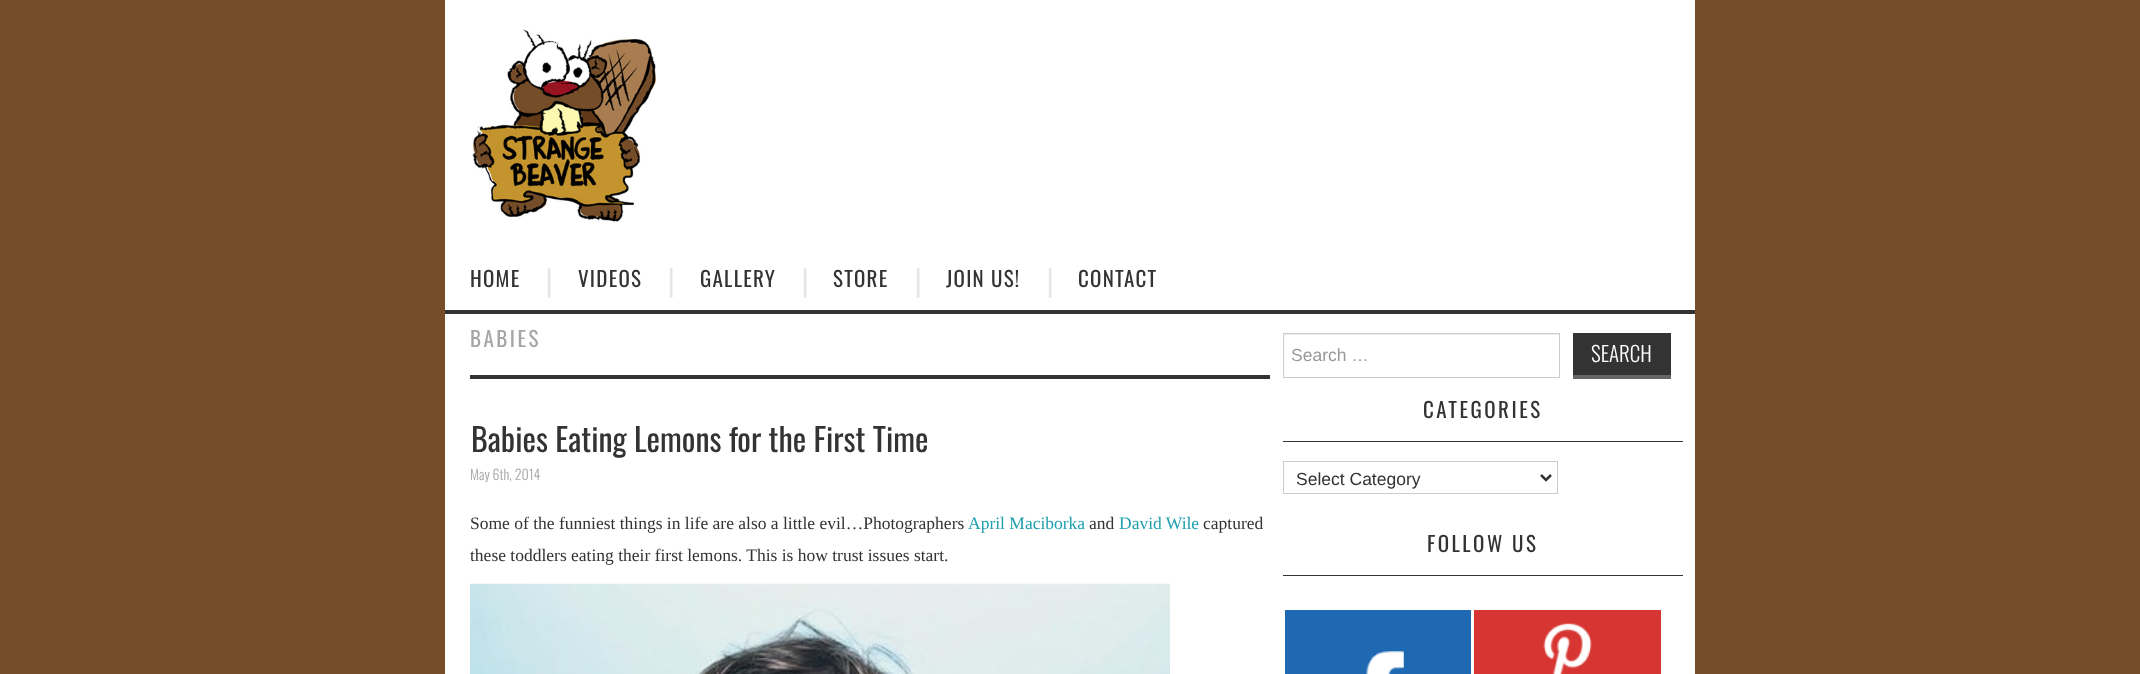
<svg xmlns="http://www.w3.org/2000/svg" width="2140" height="674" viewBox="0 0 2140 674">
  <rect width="100%" height="100%" fill="rgb(117,77,41)"/>
  <rect x="445" y="0" width="1250" height="310" fill="rgb(255,255,255)"/>
  <image x="472" y="29" width="184" height="193" href="pic1.png"/>
  <rect x="445" y="310" width="1250" height="4" fill="rgb(51,51,51)"/>
  <text x="470" y="287" font-family="Oswald" font-size="21" letter-spacing="1.25" fill="rgb(51,51,51)">HOME</text>
  <text x="545" y="291" font-family="Liberation Sans" font-size="32" fill="rgb(230,230,230)">|</text>
  <text x="578" y="287" font-family="Oswald" font-size="21" letter-spacing="1.25" fill="rgb(51,51,51)">VIDEOS</text>
  <text x="667" y="291" font-family="Liberation Sans" font-size="32" fill="rgb(230,230,230)">|</text>
  <text x="700" y="287" font-family="Oswald" font-size="21" letter-spacing="1.25" fill="rgb(51,51,51)">GALLERY</text>
  <text x="801" y="291" font-family="Liberation Sans" font-size="32" fill="rgb(230,230,230)">|</text>
  <text x="833" y="287" font-family="Oswald" font-size="21" letter-spacing="1.25" fill="rgb(51,51,51)">STORE</text>
  <text x="914" y="291" font-family="Liberation Sans" font-size="32" fill="rgb(230,230,230)">|</text>
  <text x="946" y="287" font-family="Oswald" font-size="21" letter-spacing="1.25" fill="rgb(51,51,51)">JOIN US!</text>
  <text x="1046" y="291" font-family="Liberation Sans" font-size="32" fill="rgb(230,230,230)">|</text>
  <text x="1078" y="287" font-family="Oswald" font-size="21" letter-spacing="1.25" fill="rgb(51,51,51)">CONTACT</text>
  <rect x="445" y="314" width="1250" height="360" fill="rgb(255,255,255)"/>
  <rect x="470" y="375" width="800" height="4" fill="rgb(51,51,51)"/>
  <text x="470" y="347" font-family="Oswald" font-size="21" letter-spacing="2.5" fill="rgb(166,166,166)">BABIES</text>
  <text x="471" y="452" font-family="Oswald" font-size="32" fill="rgb(51,51,51)">Babies Eating Lemons for the First Time</text>
  <text x="470" y="480" font-family="Oswald" font-size="14" font-weight="300" fill="rgb(166,166,166)">May 6th, 2014</text>
  <text x="470" y="529" font-family="Liberation Serif" font-size="17.5" fill="rgb(51,51,51)">Some of the funniest things in life are also a little evil…Photographers</text>
  <text x="968" y="529" font-family="Liberation Serif" font-size="17.5" fill="rgb(31,160,174)">April Maciborka</text>
  <text x="1089" y="529" font-family="Liberation Serif" font-size="17.5" fill="rgb(51,51,51)">and</text>
  <text x="1119" y="529" font-family="Liberation Serif" font-size="17.5" fill="rgb(31,160,174)">David Wile</text>
  <g font-family="Liberation Serif" font-size="17.5" fill="rgb(51,51,51)">
    <text x="1203" y="529">captured</text>
    <text x="470" y="561">these toddlers eating their first lemons. This is how trust issues start.</text>
  </g>
  <image x="470" y="583" width="700" height="91" href="pic2.png"/>
  <rect x="1284" y="334" width="275" height="1" fill="rgb(236,236,236)"/>
  <rect x="1283.5" y="333.5" width="276" height="44" fill="none" stroke="rgb(204,204,204)"/>
  <text x="1291" y="361" font-family="Liberation Sans" font-size="17.5" fill="rgb(153,153,153)">Search …</text>
  <rect x="1573" y="333" width="98" height="42" fill="rgb(51,51,51)"/>
  <rect x="1573" y="375" width="98" height="4" fill="rgb(102,102,102)"/>
  <text x="1591" y="362" font-family="Oswald" font-size="21" font-weight="300" fill="rgb(255,255,255)">SEARCH</text>
  <rect x="1283" y="441" width="400" height="1" fill="rgb(51,51,51)"/>
  <text x="1423" y="418" font-family="Oswald" font-size="21" letter-spacing="2.5" fill="rgb(51,51,51)">CATEGORIES</text>
  <rect x="1283.5" y="461.5" width="274" height="32" fill="none" stroke="rgb(204,204,204)"/>
  <path d="M1541 475L1546 480L1551 475" fill="none" stroke="rgb(51,51,51)" stroke-width="2.5"/>
  <text x="1296" y="485" font-family="Liberation Sans" font-size="17.5" fill="rgb(51,51,51)">Select Category</text>
  <rect x="1283" y="575" width="400" height="1" fill="rgb(51,51,51)"/>
  <text x="1427" y="552" font-family="Oswald" font-size="21" letter-spacing="2.5" fill="rgb(51,51,51)">FOLLOW US</text>
  <rect x="1285" y="610" width="186" height="64" fill="rgb(31,105,179)"/>
  <image x="1366" y="651" width="38" height="23" href="pic3.png"/>
  <rect x="1474" y="610" width="187" height="64" fill="rgb(215,53,50)"/>
  <image x="1543" y="623" width="49" height="51" href="pic4.png"/>
</svg>
